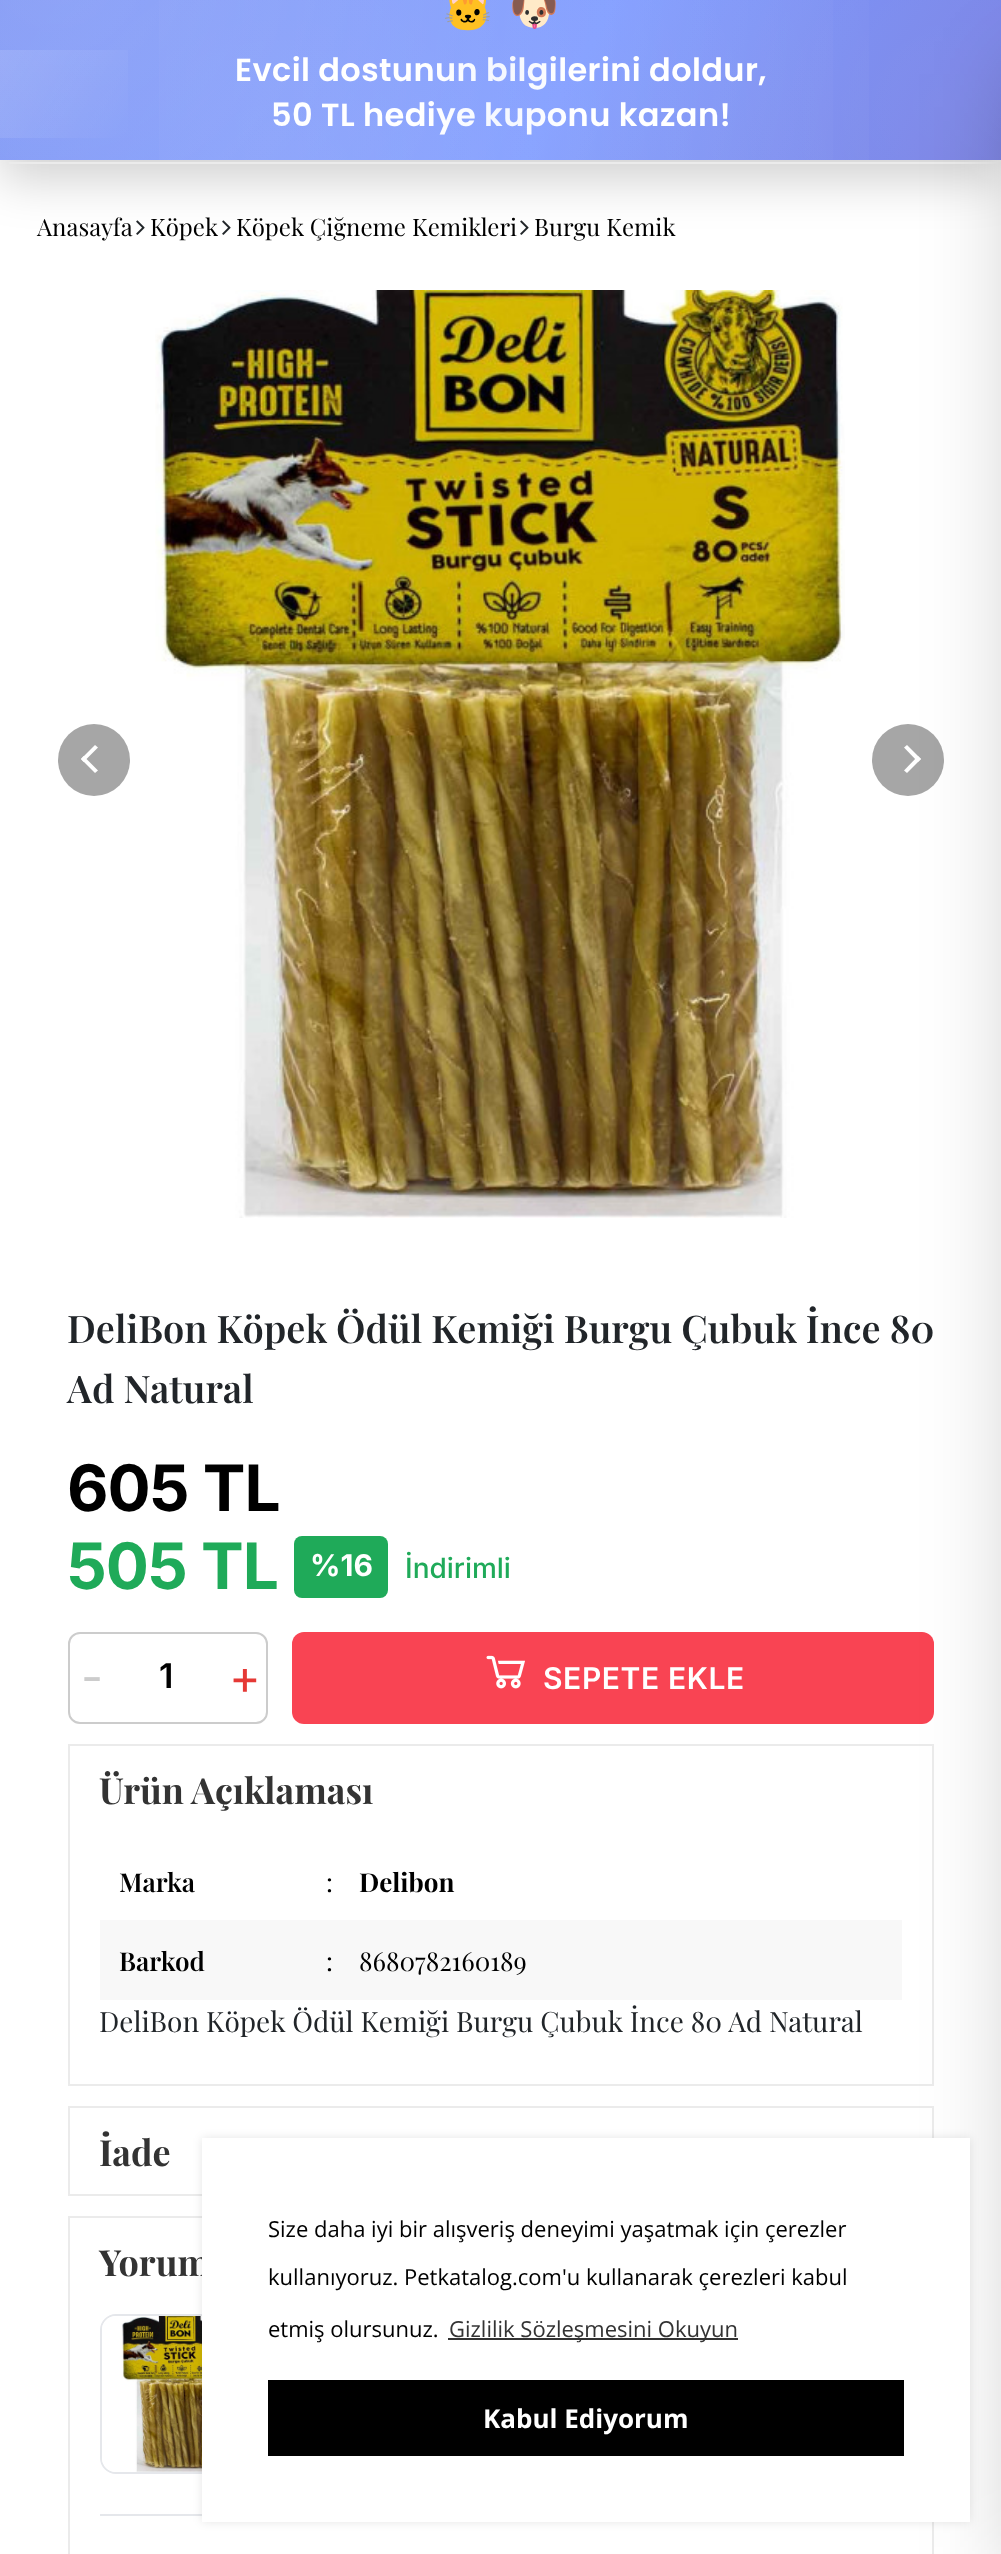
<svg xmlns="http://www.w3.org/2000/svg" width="1001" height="2554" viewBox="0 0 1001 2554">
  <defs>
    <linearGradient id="g1" gradientUnits="userSpaceOnUse" x1="235" y1="94" x2="767" y2="94"><stop offset="0" stop-color="rgb(255,255,255)"/><stop offset="0.35" stop-color="rgb(255,255,255)"/><stop offset="0.5" stop-color="rgb(244,247,255)"/><stop offset="0.65" stop-color="rgb(255,255,255)"/><stop offset="1" stop-color="rgb(255,255,255)"/></linearGradient>
    <linearGradient id="g2" gradientUnits="userSpaceOnUse" x1="42" y1="-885" x2="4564" y2="1725"><stop offset="0" stop-color="rgb(102,126,234)"/><stop offset="0.18" stop-color="rgb(107,140,255)"/><stop offset="0.42" stop-color="rgb(118,75,162)"/><stop offset="0.65" stop-color="rgb(255,106,162)"/><stop offset="0.85" stop-color="rgb(77,208,225)"/><stop offset="1" stop-color="rgb(102,126,234)"/></linearGradient>
    <linearGradient id="g3" gradientUnits="userSpaceOnUse" x1="-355" y1="-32" x2="81" y2="220"><stop offset="0" stop-color="rgb(255,255,255)" stop-opacity="0"/><stop offset="0.5" stop-color="rgb(255,255,255)" stop-opacity="0.21"/><stop offset="1" stop-color="rgb(255,255,255)" stop-opacity="0"/></linearGradient>
    <radialGradient id="g4" gradientUnits="userSpaceOnUse" cx="280" cy="192" r="1370"><stop offset="0" stop-color="rgb(255,255,255)" stop-opacity="0.1"/><stop offset="0.55" stop-color="rgb(255,255,255)" stop-opacity="0"/></radialGradient>
    <radialGradient id="g5" gradientUnits="userSpaceOnUse" cx="942" cy="104" r="1567"><stop offset="0" stop-color="rgb(255,255,255)" stop-opacity="0.13"/><stop offset="0.6" stop-color="rgb(255,255,255)" stop-opacity="0"/></radialGradient>
    <radialGradient id="g6" gradientUnits="userSpaceOnUse" cx="60" cy="-28" r="1575"><stop offset="0" stop-color="rgb(255,255,255)" stop-opacity="0.21"/><stop offset="0.55" stop-color="rgb(255,255,255)" stop-opacity="0"/></radialGradient>
  </defs>
  <rect width="100%" height="100%" fill="rgb(255,255,255)"/>
  <image x="136" y="220" width="9" height="15" href="pic1.png"/>
  <image x="222" y="220" width="9" height="15" href="pic1.png"/>
  <image x="520" y="220" width="9" height="15" href="pic1.png"/>
  <rect x="0" y="-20" width="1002" height="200" fill="rgba(0,0,0,0.18)" filter="blur(24px)"/>
  <rect x="0" y="0" width="1001" height="160" fill="url(#g2)"/>
  <rect x="0" y="50" width="128" height="88" fill="url(#g3)"/>
  <rect x="0" y="0" width="869" height="160" fill="url(#g4)"/>
  <rect x="159" y="0" width="842" height="160" fill="url(#g5)"/>
  <rect x="0" y="0" width="833" height="160" fill="url(#g6)"/>
  <g font-family="Noto Color Emoji" font-size="40" fill="rgb(0,86,179)">
    <text x="443" y="25">🐱</text>
    <text x="509" y="25">🐶</text>
  </g>
  <g font-family="Poppins" font-size="32" font-weight="600" letter-spacing="0.4" fill="url(#g1)">
    <text x="235" y="81">Evcil dostunun bilgilerini doldur,</text>
    <text x="271" y="126">50 TL hediye kuponu kazan!</text>
  </g>
  <rect x="9" y="162" width="992" height="2" fill="rgb(235,235,235)"/>
  <circle cx="908" cy="760" r="36" fill="rgb(166,166,166)"/>
  <path d="M907 745L921 759L918 762L904 747.5Z" fill="rgb(255,255,255)"/>
  <path d="M918 756L921 759L907 773L904 770.5Z" fill="rgb(255,255,255)"/>
  <rect x="292" y="1632" width="642" height="92" rx="12" fill="rgb(249,68,83)"/>
  <rect x="69" y="1745" width="864" height="340" fill="none" stroke="rgb(235,235,235)" stroke-width="2"/>
  <rect x="100" y="1920" width="802" height="80" fill="rgb(248,248,248)"/>
  <rect x="69" y="2107" width="864" height="88" fill="none" stroke="rgb(235,235,235)" stroke-width="2"/>
  <rect x="69" y="2217" width="864" height="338" fill="none" stroke="rgb(235,235,235)" stroke-width="2"/>
  <rect x="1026" y="74" width="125" height="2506" fill="rgba(0,0,0,0.25)" filter="blur(50px)"/>
  <g font-family="Playfair Display" font-size="24" fill="rgb(0,0,0)">
    <text x="37" y="236">Anasayfa</text>
    <text x="150" y="236">Köpek</text>
    <text x="236" y="236">Köpek Çiğneme Kemikleri</text>
    <text x="534" y="236">Burgu Kemik</text>
  </g>
  <circle cx="94" cy="760" r="36" fill="rgb(166,166,166)"/>
  <path d="M95 773L81 759L83.5 756L98 770.5Z" fill="rgb(255,255,255)"/>
  <path d="M83.5 762L81 759L95 745L98 747.5Z" fill="rgb(255,255,255)"/>
  <image x="155" y="290" width="690" height="928" href="pic2.png"/>
  <g font-family="Playfair Display" font-size="38" font-weight="600" fill="rgb(33,37,41)">
    <text>
      <tspan x="67" y="1343">DeliBon Köpek Ödül Kemiği Burgu Çubuk İnce 80</tspan>
      <tspan x="67" y="1403">Ad Natural</tspan>
    </text>
  </g>
  <text x="67" y="1511" font-family="Inter" font-size="64" font-weight="bold" letter-spacing="-1" fill="rgb(0,0,0)">605 TL</text>
  <text x="67" y="1589" font-family="Inter" font-size="64" font-weight="bold" letter-spacing="-1" fill="rgb(31,170,89)">505 TL</text>
  <rect x="294" y="1536" width="94" height="62" rx="8" fill="rgb(31,170,89)"/>
  <text x="310" y="1576" font-family="Inter" font-size="30" font-weight="bold" fill="rgb(255,255,255)">%16</text>
  <text x="405" y="1578" font-family="Inter" font-size="28" font-weight="500" fill="rgb(31,170,89)">İndirimli</text>
  <rect x="69" y="1633" width="198" height="90" rx="11" fill="none" stroke="rgb(204,204,204)" stroke-width="2"/>
  <text x="81" y="1694" font-family="Inter" font-size="48" fill="rgb(204,204,204)">-</text>
  <text x="159" y="1688" font-family="Inter" font-size="34" font-weight="600" fill="rgb(0,0,0)">1</text>
  <text x="229" y="1694" font-family="Inter" font-size="48" fill="rgb(229,57,53)">+</text>
  <image x="486" y="1655" width="39" height="34" href="pic3.png"/>
  <text x="543" y="1689" font-family="Inter" font-size="30" font-weight="600" letter-spacing="0.6" fill="rgb(255,255,255)">SEPETE EKLE</text>
  <text x="99" y="1804" font-family="Playfair Display" font-size="36" font-weight="bold" fill="rgb(51,51,51)">Ürün Açıklaması</text>
  <text x="119" y="1892" font-family="Playfair Display" font-size="26" font-weight="600" fill="rgb(0,0,0)">Marka</text>
  <text x="326" y="1892" font-family="Playfair Display" font-size="26" fill="rgb(0,0,0)">:</text>
  <text x="359" y="1892" font-family="Playfair Display" font-size="26" font-weight="bold" fill="rgb(0,0,0)">Delibon</text>
  <text x="119" y="1971" font-family="Playfair Display" font-size="26" font-weight="600" fill="rgb(0,0,0)">Barkod</text>
  <g font-family="Playfair Display" font-size="26" fill="rgb(0,0,0)">
    <text x="326" y="1971">:</text>
    <text x="359" y="1971">8680782160189</text>
  </g>
  <text x="99" y="2032" font-family="Playfair Display" font-size="28" fill="rgb(33,37,41)">DeliBon Köpek Ödül Kemiği Burgu Çubuk İnce 80 Ad Natural</text>
  <g font-family="Playfair Display" font-size="36" font-weight="bold" fill="rgb(51,51,51)">
    <text x="99" y="2166">İade</text>
    <text x="99" y="2276">Yorum</text>
  </g>
  <rect x="100" y="2514" width="102" height="2" fill="rgb(229,231,235)"/>
  <rect x="101" y="2315" width="158" height="158" rx="15" fill="none" stroke="rgb(229,231,235)" stroke-width="2"/>
  <image x="102" y="2316" width="100" height="156" href="pic4.png"/>
  <rect x="202" y="2138" width="768" height="384" fill="rgba(0,0,0,0.1)" filter="blur(5px)"/>
  <rect x="202" y="2138" width="768" height="384" fill="rgb(255,255,255)"/>
  <g font-family="Open Sans" font-size="22" fill="rgb(0,0,0)">
    <text x="268" y="2237">Size daha iyi bir alışveriş deneyimi yaşatmak için çerezler</text>
    <text x="268" y="2285">kullanıyoruz. Petkatalog.com'u kullanarak çerezleri kabul</text>
    <text x="268" y="2337">etmiş olursunuz.</text>
  </g>
  <rect x="448" y="2338" width="290" height="2" fill="rgb(51,51,51)"/>
  <text x="449" y="2337" font-family="Open Sans" font-size="22" fill="rgb(51,51,51)">Gizlilik Sözleşmesini Okuyun</text>
  <rect x="268" y="2380" width="636" height="76" fill="rgb(0,0,0)"/>
  <text x="483" y="2428" font-family="Open Sans" font-size="26" font-weight="bold" fill="rgb(255,255,255)">Kabul Ediyorum</text>
</svg>
